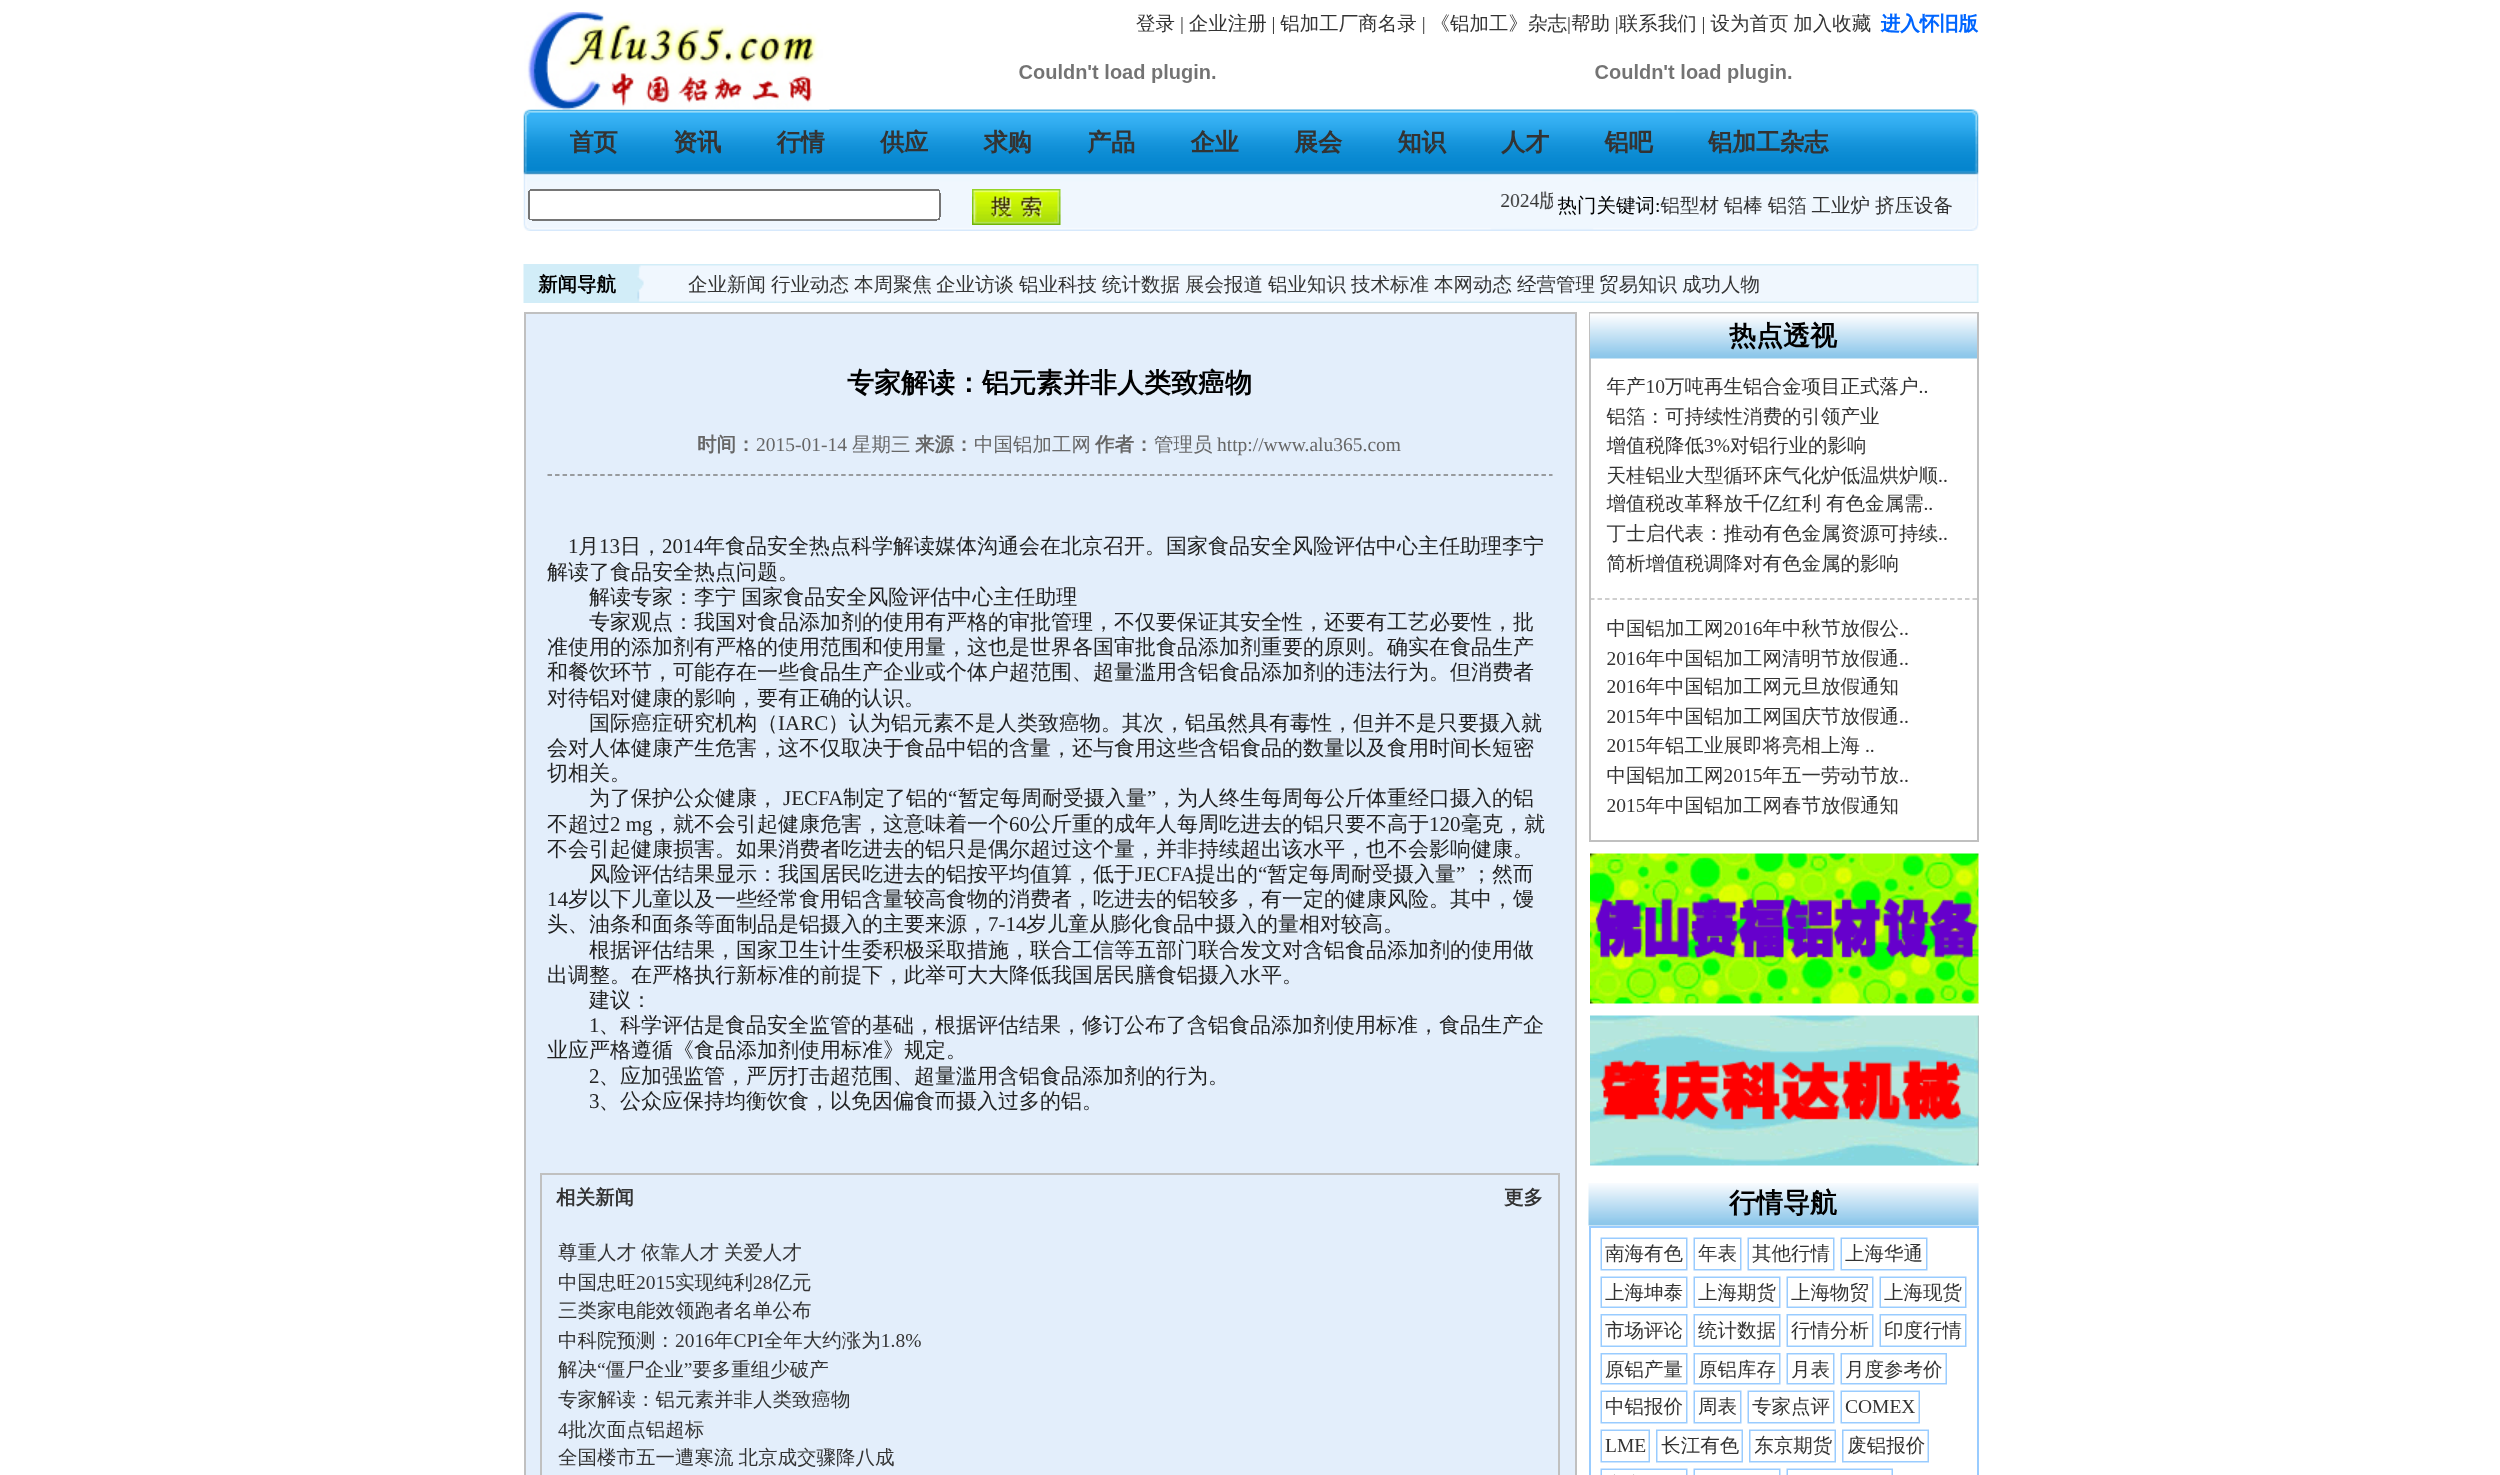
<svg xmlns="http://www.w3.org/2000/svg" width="2500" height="1475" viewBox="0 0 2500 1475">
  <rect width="100%" height="100%" fill="rgb(255,255,255)"/>
  <image x="523" y="12" width="1456" height="219" href="pic1.png"/>
  <image x="523" y="264" width="1456" height="39" href="pic2.png"/>
  <text x="538" y="291" font-family="WenQuanYi Zen Hei" font-size="19.5" font-weight="bold" fill="rgb(0,0,0)">新闻导航</text>
  <g font-family="WenQuanYi Zen Hei" font-size="19.5" font-weight="500" fill="rgb(51,51,51)">
    <text x="688" y="291">企业新闻</text>
    <text x="771" y="291">行业动态</text>
    <text x="854" y="291">本周聚焦</text>
    <text x="936" y="291">企业访谈</text>
    <text x="1019" y="291">铝业科技</text>
    <text x="1102" y="291">统计数据</text>
    <text x="1185" y="291">展会报道</text>
    <text x="1268" y="291">铝业知识</text>
    <text x="1351" y="291">技术标准</text>
    <text x="1434" y="291">本网动态</text>
    <text x="1517" y="291">经营管理</text>
    <text x="1599" y="291">贸易知识</text>
    <text x="1682" y="291">成功人物</text>
  </g>
  <rect x="525" y="313" width="1051" height="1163" fill="rgb(227,238,251)" stroke="rgb(192,192,192)" stroke-width="2"/>
  <text x="847" y="392" font-family="WenQuanYi Zen Hei" font-size="27" font-weight="bold" fill="rgb(0,0,0)">专家解读：铝元素并非人类致癌物</text>
  <path d="M547.5 475H1552.5" fill="none" stroke="rgb(128,128,128)" stroke-width="1.5" stroke-dasharray="4.5 3.03"/>
  <text x="697" y="451" font-family="WenQuanYi Zen Hei" font-size="19.5" font-weight="bold" fill="rgb(102,102,102)">时间：</text>
  <text x="756" y="451" font-family="Liberation Serif" font-size="19.5" fill="rgb(102,102,102)">2015-01-14</text>
  <text x="852" y="451" font-family="WenQuanYi Zen Hei" font-size="19.5" font-weight="500" fill="rgb(102,102,102)">星期三</text>
  <text x="915" y="451" font-family="WenQuanYi Zen Hei" font-size="19.5" font-weight="bold" fill="rgb(102,102,102)">来源：</text>
  <text x="974" y="451" font-family="WenQuanYi Zen Hei" font-size="19.5" font-weight="500" fill="rgb(102,102,102)">中国铝加工网</text>
  <text x="1095" y="451" font-family="WenQuanYi Zen Hei" font-size="19.5" font-weight="bold" fill="rgb(102,102,102)">作者：</text>
  <text x="1154" y="451" font-family="WenQuanYi Zen Hei" font-size="19.5" font-weight="500" fill="rgb(102,102,102)">管理员</text>
  <text x="1217" y="451" font-family="Liberation Serif" font-size="19.5" fill="rgb(102,102,102)">http://www.alu365.com</text>
  <text x="568" y="553" font-family="Liberation Serif" font-size="21" fill="rgb(34,34,34)">1</text>
  <text x="578" y="553" font-family="WenQuanYi Zen Hei" font-size="21" font-weight="500" fill="rgb(34,34,34)">月</text>
  <text x="599" y="553" font-family="Liberation Serif" font-size="21" fill="rgb(34,34,34)">13</text>
  <text x="620" y="553" font-family="WenQuanYi Zen Hei" font-size="21" font-weight="500" fill="rgb(34,34,34)">日，</text>
  <text x="662" y="553" font-family="Liberation Serif" font-size="21" fill="rgb(34,34,34)">2014</text>
  <g font-family="WenQuanYi Zen Hei" font-size="21" font-weight="500" fill="rgb(34,34,34)">
    <text x="704" y="553">年食品安全热点科学解读媒体沟通会在北京召开。国家食品安全风险评估中心主任助理李宁</text>
    <text x="547" y="579">解读了食品安全热点问题。</text>
    <text>
      <tspan x="589" y="604" word-spacing="-1">解读专家：李宁 国家食品安全风险评估中心主任助理</tspan>
      <tspan x="589" y="629">专家观点：我国对食品添加剂的使用有严格的审批管理，不仅要保证其安全性，还要有工艺必要性，批</tspan>
    </text>
    <text>
      <tspan x="547" y="654">准使用的添加剂有严格的使用范围和使用量，这也是世界各国审批食品添加剂重要的原则。确实在食品生产</tspan>
      <tspan x="547" y="679">和餐饮环节，可能存在一些食品生产企业或个体户超范围、超量滥用含铝食品添加剂的违法行为。但消费者</tspan>
      <tspan x="547" y="705">对待铝对健康的影响，要有正确的认识。</tspan>
    </text>
    <text x="589" y="730">国际癌症研究机构（</text>
  </g>
  <text x="778" y="730" font-family="Liberation Serif" font-size="21" fill="rgb(34,34,34)">IARC</text>
  <g font-family="WenQuanYi Zen Hei" font-size="21" font-weight="500" fill="rgb(34,34,34)">
    <text x="828" y="730">）认为铝元素不是人类致癌物。其次，铝虽然具有毒性，但并不是只要摄入就</text>
    <text>
      <tspan x="547" y="755">会对人体健康产生危害，这不仅取决于食品中铝的含量，还与食用这些含铝食品的数量以及食用时间长短密</tspan>
      <tspan x="547" y="780">切相关。</tspan>
    </text>
    <text x="589" y="805">为了保护公众健康，</text>
  </g>
  <text x="783" y="805" font-family="Liberation Serif" font-size="21" fill="rgb(34,34,34)">JECFA</text>
  <text x="843" y="805" font-family="WenQuanYi Zen Hei" font-size="21" font-weight="500" fill="rgb(34,34,34)">制定了铝的</text>
  <text x="948" y="805" font-family="Liberation Serif" font-size="21" fill="rgb(34,34,34)">“</text>
  <text x="958" y="805" font-family="WenQuanYi Zen Hei" font-size="21" font-weight="500" fill="rgb(34,34,34)">暂定每周耐受摄入量</text>
  <text x="1147" y="805" font-family="Liberation Serif" font-size="21" fill="rgb(34,34,34)">”</text>
  <g font-family="WenQuanYi Zen Hei" font-size="21" font-weight="500" fill="rgb(34,34,34)">
    <text x="1156" y="805">，为人终生每周每公斤体重经口摄入的铝</text>
    <text x="547" y="831">不超过</text>
  </g>
  <text x="610" y="831" font-family="Liberation Serif" font-size="21" fill="rgb(34,34,34)">2 mg</text>
  <text x="652" y="831" font-family="WenQuanYi Zen Hei" font-size="21" font-weight="500" fill="rgb(34,34,34)">，就不会引起健康危害，这意味着一个</text>
  <text x="1009" y="831" font-family="Liberation Serif" font-size="21" fill="rgb(34,34,34)">60</text>
  <text x="1030" y="831" font-family="WenQuanYi Zen Hei" font-size="21" font-weight="500" fill="rgb(34,34,34)">公斤重的成年人每周吃进去的铝只要不高于</text>
  <text x="1429" y="831" font-family="Liberation Serif" font-size="21" fill="rgb(34,34,34)">120</text>
  <g font-family="WenQuanYi Zen Hei" font-size="21" font-weight="500" fill="rgb(34,34,34)">
    <text x="1461" y="831">毫克，就</text>
    <text x="547" y="856">不会引起健康损害。如果消费者吃进去的铝只是偶尔超过这个量，并非持续超出该水平，也不会影响健康。</text>
    <text x="589" y="881">风险评估结果显示：我国居民吃进去的铝按平均值算，低于</text>
  </g>
  <text x="1135" y="881" font-family="Liberation Serif" font-size="21" fill="rgb(34,34,34)">JECFA</text>
  <text x="1195" y="881" font-family="WenQuanYi Zen Hei" font-size="21" font-weight="500" fill="rgb(34,34,34)">提出的</text>
  <text x="1258" y="881" font-family="Liberation Serif" font-size="21" fill="rgb(34,34,34)">“</text>
  <text x="1267" y="881" font-family="WenQuanYi Zen Hei" font-size="21" font-weight="500" fill="rgb(34,34,34)">暂定每周耐受摄入量</text>
  <text x="1456" y="881" font-family="Liberation Serif" font-size="21" fill="rgb(34,34,34)">”</text>
  <text x="1471" y="881" font-family="WenQuanYi Zen Hei" font-size="21" font-weight="500" fill="rgb(34,34,34)">；然而</text>
  <text x="547" y="906" font-family="Liberation Serif" font-size="21" fill="rgb(34,34,34)">14</text>
  <g font-family="WenQuanYi Zen Hei" font-size="21" font-weight="500" fill="rgb(34,34,34)">
    <text x="568" y="906">岁以下儿童以及一些经常食用铝含量较高食物的消费者，吃进去的铝较多，有一定的健康风险。其中，馒</text>
    <text x="547" y="931">头、油条和面条等面制品是铝摄入的主要来源，</text>
  </g>
  <text x="988" y="931" font-family="Liberation Serif" font-size="21" fill="rgb(34,34,34)">7-14</text>
  <g font-family="WenQuanYi Zen Hei" font-size="21" font-weight="500" fill="rgb(34,34,34)">
    <text x="1026" y="931">岁儿童从膨化食品中摄入的量相对较高。</text>
    <text x="589" y="957">根据评估结果，国家卫生计生委积极采取措施，联合工信等五部门联合发文对含铝食品添加剂的使用做</text>
    <text x="547" y="982">出调整。在严格执行新标准的前提下，此举可大大降低我国居民膳食铝摄入水平。</text>
    <text x="589" y="1007">建议：</text>
  </g>
  <text x="589" y="1032" font-family="Liberation Serif" font-size="21" fill="rgb(34,34,34)">1</text>
  <g font-family="WenQuanYi Zen Hei" font-size="21" font-weight="500" fill="rgb(34,34,34)">
    <text x="599" y="1032">、科学评估是食品安全监管的基础，根据评估结果，修订公布了含铝食品添加剂使用标准，食品生产企</text>
    <text x="547" y="1057">业应严格遵循《食品添加剂使用标准》规定。</text>
  </g>
  <text x="589" y="1083" font-family="Liberation Serif" font-size="21" fill="rgb(34,34,34)">2</text>
  <text x="599" y="1083" font-family="WenQuanYi Zen Hei" font-size="21" font-weight="500" fill="rgb(34,34,34)">、应加强监管，严厉打击超范围、超量滥用含铝食品添加剂的行为。</text>
  <text x="589" y="1108" font-family="Liberation Serif" font-size="21" fill="rgb(34,34,34)">3</text>
  <text x="599" y="1108" font-family="WenQuanYi Zen Hei" font-size="21" font-weight="500" fill="rgb(34,34,34)">、公众应保持均衡饮食，以免因偏食而摄入过多的铝。</text>
  <rect x="541" y="1174" width="1018" height="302" fill="none" stroke="rgb(192,192,192)" stroke-width="2"/>
  <g font-family="WenQuanYi Zen Hei" font-size="19.5" font-weight="bold" fill="rgb(51,51,51)">
    <text x="556" y="1204">相关新闻</text>
    <text x="1504" y="1204">更多</text>
  </g>
  <image x="558" y="1242" width="363" height="225" href="pic3.png"/>
  <rect x="1590" y="313" width="388" height="528" fill="none" stroke="rgb(192,192,192)" stroke-width="2"/>
  <image x="1590" y="313" width="387" height="46" href="pic4.png"/>
  <text x="1729" y="345" font-family="WenQuanYi Zen Hei" font-size="27" font-weight="bold" fill="rgb(0,0,0)">热点透视</text>
  <path d="M1590 599H1977" fill="none" stroke="rgb(192,192,192)" stroke-width="1.5" stroke-dasharray="4.5 3"/>
  <image x="1606" y="376" width="341" height="197" href="pic5.png"/>
  <image x="1607" y="619" width="301" height="196" href="pic6.png"/>
  <image x="1590" y="853" width="389" height="313" href="pic7.png"/>
  <image x="1588" y="1183" width="391" height="43" href="pic8.png"/>
  <text x="1729" y="1212" font-family="WenQuanYi Zen Hei" font-size="27" font-weight="bold" fill="rgb(0,0,0)">行情导航</text>
  <rect x="1590" y="1227" width="388" height="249" fill="none" stroke="rgb(153,204,255)" stroke-width="2"/>
  <image x="1600" y="1237" width="367" height="238" href="pic9.png"/>
</svg>
